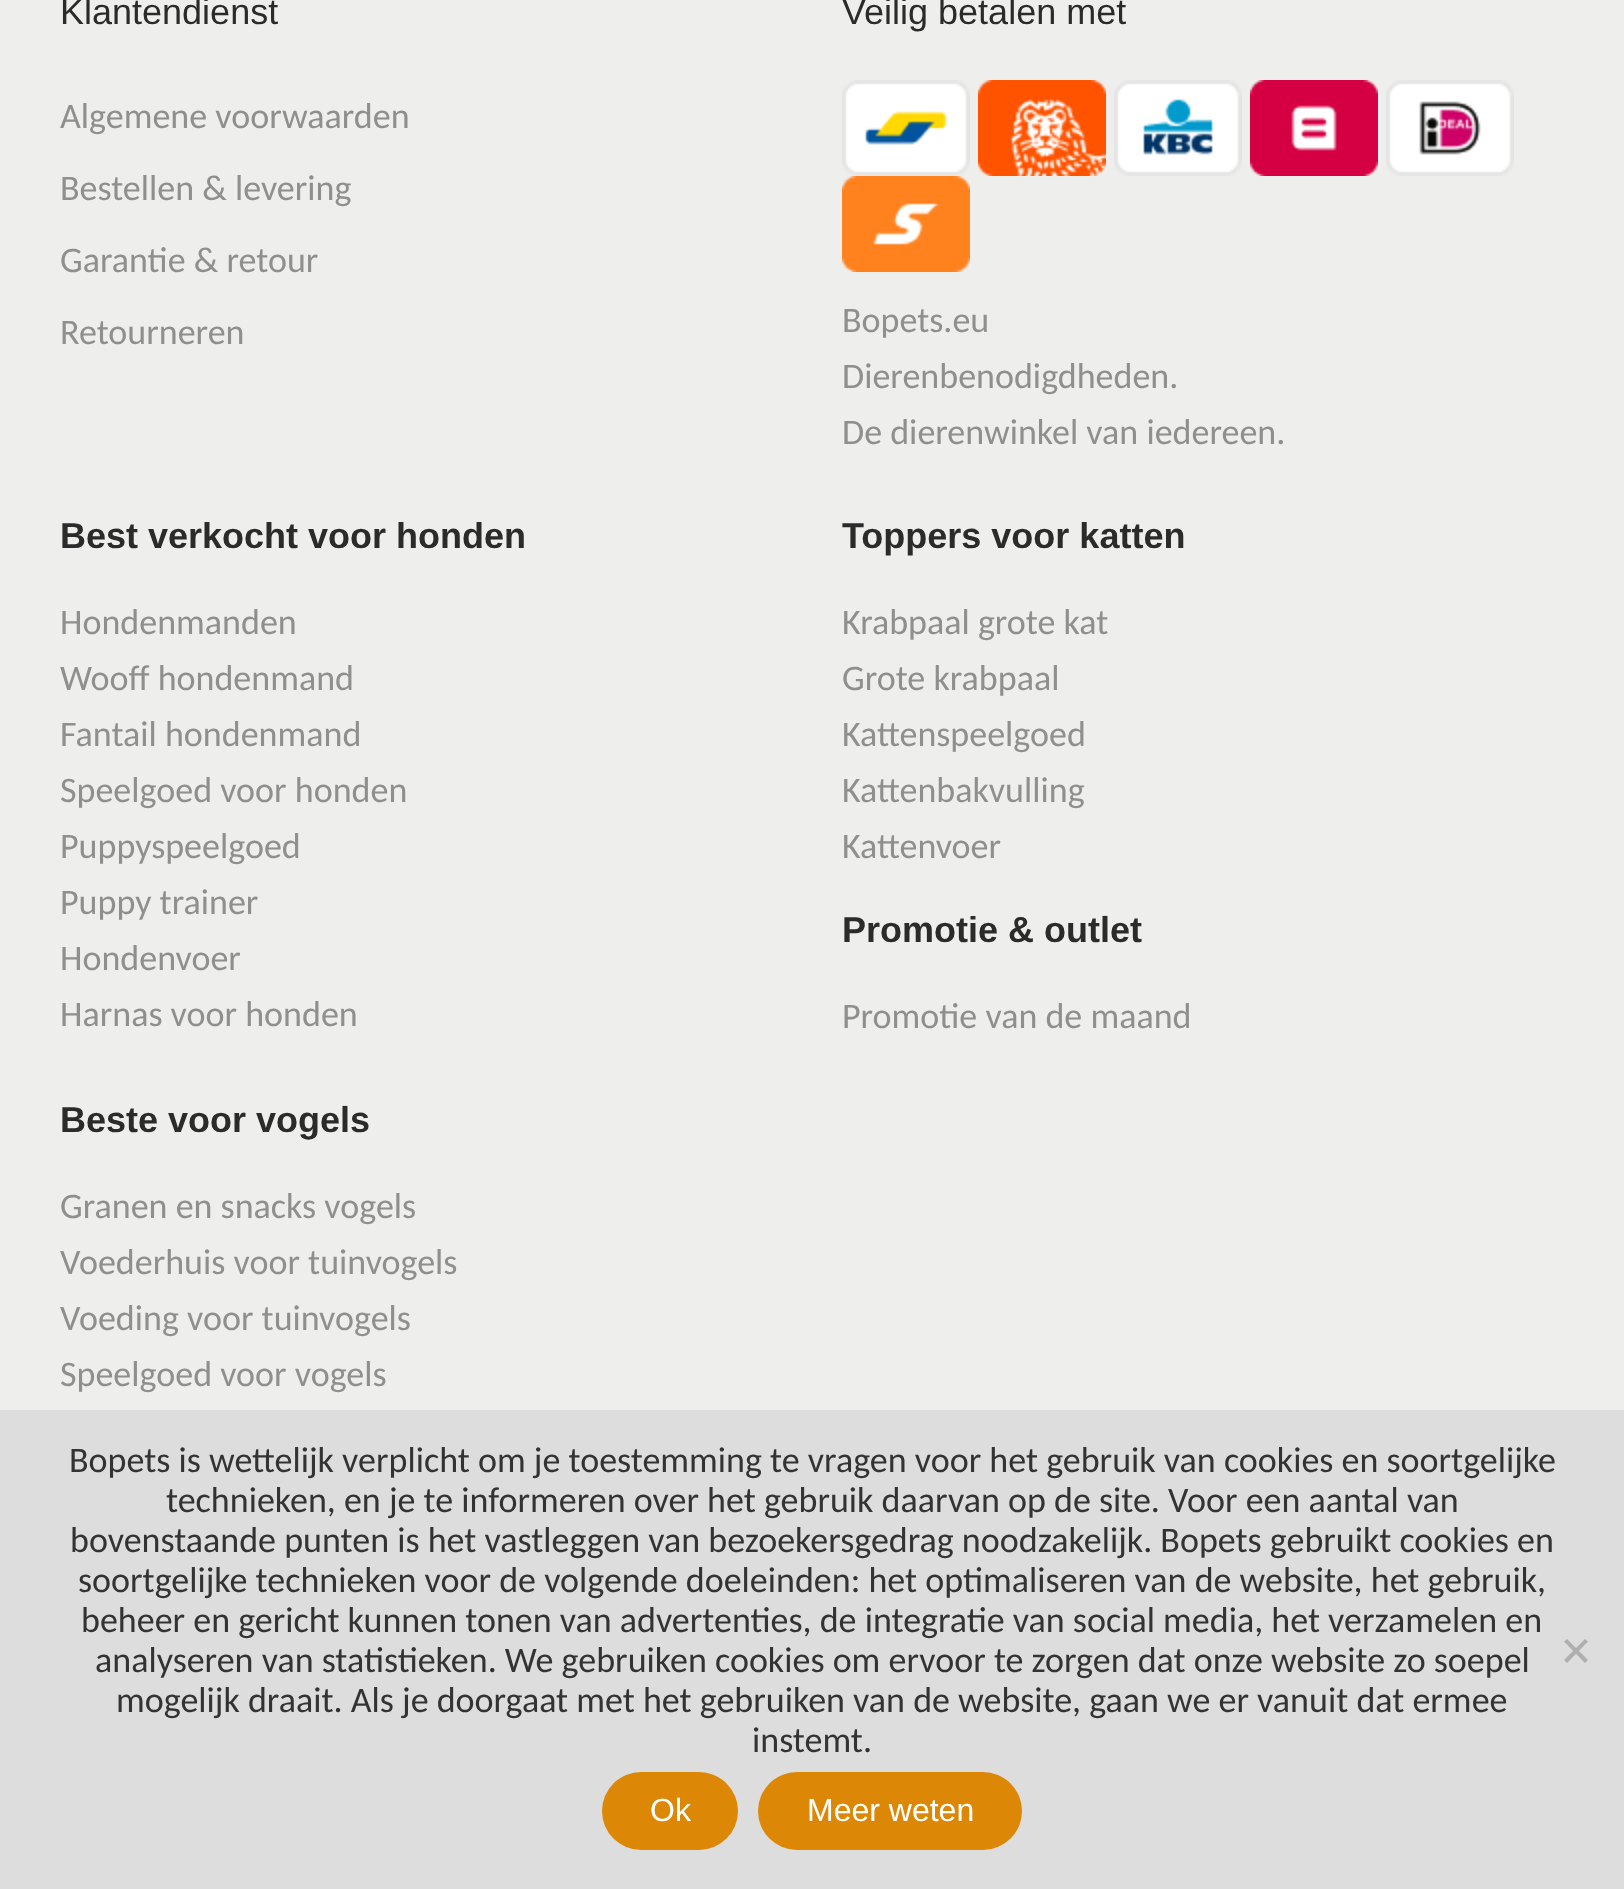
<svg xmlns="http://www.w3.org/2000/svg" width="1624" height="1889" viewBox="0 0 1624 1889">
  <rect width="100%" height="100%" fill="rgb(238,238,236)"/>
  <text x="60" y="24" font-family="Liberation Sans" font-size="36" fill="rgb(43,43,43)">Klantendienst</text>
  <g font-family="Carlito" font-size="36" fill="rgb(143,143,143)">
    <text x="60" y="128">Algemene voorwaarden</text>
    <text x="60" y="200">Bestellen &amp; levering</text>
    <text x="60" y="272">Garantie &amp; retour</text>
    <text x="60" y="344">Retourneren</text>
  </g>
  <text x="842" y="24" font-family="Liberation Sans" font-size="36" fill="rgb(43,43,43)">Veilig betalen met</text>
  <image x="842" y="80" width="128" height="96" href="pic1.png"/>
  <image x="978" y="80" width="128" height="96" href="pic2.png"/>
  <image x="1114" y="80" width="128" height="96" href="pic3.png"/>
  <image x="1250" y="80" width="128" height="96" href="pic4.png"/>
  <image x="1386" y="80" width="128" height="96" href="pic5.png"/>
  <image x="842" y="176" width="128" height="96" href="pic6.png"/>
  <g font-family="Carlito" font-size="36" fill="rgb(143,143,143)">
    <text>
      <tspan x="842" y="332">Bopets.eu</tspan>
      <tspan x="842" y="388">Dierenbenodigdheden.</tspan>
      <tspan x="842" y="444">De dierenwinkel van iedereen.</tspan>
    </text>
  </g>
  <text x="60" y="548" font-family="Liberation Sans" font-size="36" font-weight="bold" fill="rgb(43,43,43)">Best verkocht voor honden</text>
  <g font-family="Carlito" font-size="36" fill="rgb(143,143,143)">
    <text>
      <tspan x="60" y="634">Hondenmanden</tspan>
      <tspan x="60" y="690">Wooff hondenmand</tspan>
      <tspan x="60" y="746">Fantail hondenmand</tspan>
      <tspan x="60" y="802">Speelgoed voor honden</tspan>
      <tspan x="60" y="858">Puppyspeelgoed</tspan>
      <tspan x="60" y="914">Puppy trainer</tspan>
      <tspan x="60" y="970">Hondenvoer</tspan>
      <tspan x="60" y="1026">Harnas voor honden</tspan>
    </text>
  </g>
  <text x="842" y="548" font-family="Liberation Sans" font-size="36" font-weight="bold" fill="rgb(43,43,43)">Toppers voor katten</text>
  <g font-family="Carlito" font-size="36" fill="rgb(143,143,143)">
    <text>
      <tspan x="842" y="634">Krabpaal grote kat</tspan>
      <tspan x="842" y="690">Grote krabpaal</tspan>
      <tspan x="842" y="746">Kattenspeelgoed</tspan>
      <tspan x="842" y="802">Kattenbakvulling</tspan>
      <tspan x="842" y="858">Kattenvoer</tspan>
    </text>
  </g>
  <text x="842" y="942" font-family="Liberation Sans" font-size="36" font-weight="bold" fill="rgb(43,43,43)">Promotie &amp; outlet</text>
  <text x="842" y="1028" font-family="Carlito" font-size="36" fill="rgb(143,143,143)">Promotie van de maand</text>
  <text x="60" y="1132" font-family="Liberation Sans" font-size="36" font-weight="bold" fill="rgb(43,43,43)">Beste voor vogels</text>
  <g font-family="Carlito" font-size="36" fill="rgb(143,143,143)">
    <text>
      <tspan x="60" y="1218">Granen en snacks vogels</tspan>
      <tspan x="60" y="1274">Voederhuis voor tuinvogels</tspan>
      <tspan x="60" y="1330">Voeding voor tuinvogels</tspan>
      <tspan x="60" y="1386">Speelgoed voor vogels</tspan>
    </text>
  </g>
  <rect x="0" y="1410" width="1624" height="479" fill="rgb(221,221,221)"/>
  <g font-family="Carlito" font-size="36" fill="rgb(51,51,51)">
    <text x="69" y="1472">Bopets is wettelijk verplicht om je toestemming te vragen voor het gebruik van cookies en soortgelijke</text>
    <text x="166" y="1512">technieken, en je te informeren over het gebruik daarvan op de site. Voor een aantal van</text>
    <text x="70" y="1552">bovenstaande punten is het vastleggen van bezoekersgedrag noodzakelijk. Bopets gebruikt cookies en</text>
    <text x="78" y="1592">soortgelijke technieken voor de volgende doeleinden: het optimaliseren van de website, het gebruik,</text>
    <text x="81" y="1632">beheer en gericht kunnen tonen van advertenties, de integratie van social media, het verzamelen en</text>
    <text x="95" y="1672">analyseren van statistieken. We gebruiken cookies om ervoor te zorgen dat onze website zo soepel</text>
    <text x="116" y="1712">mogelijk draait. Als je doorgaat met het gebruiken van de website, gaan we er vanuit dat ermee</text>
    <text x="752" y="1752">instemt.</text>
  </g>
  <path d="M1585 1639L1588 1641.5L1567 1663L1564 1660Z" fill="rgb(175,175,175)"/>
  <path d="M1564 1641.5L1567 1639L1588 1660L1585 1663Z" fill="rgb(175,175,175)"/>
  <rect x="602" y="1772" width="136" height="78" rx="39" fill="rgb(221,135,6)"/>
  <text x="650" y="1821" font-family="Liberation Sans" font-size="32" fill="rgb(255,255,255)">Ok</text>
  <rect x="758" y="1772" width="264" height="78" rx="39" fill="rgb(221,135,6)"/>
  <text x="807" y="1821" font-family="Liberation Sans" font-size="32" fill="rgb(255,255,255)">Meer weten</text>
</svg>
